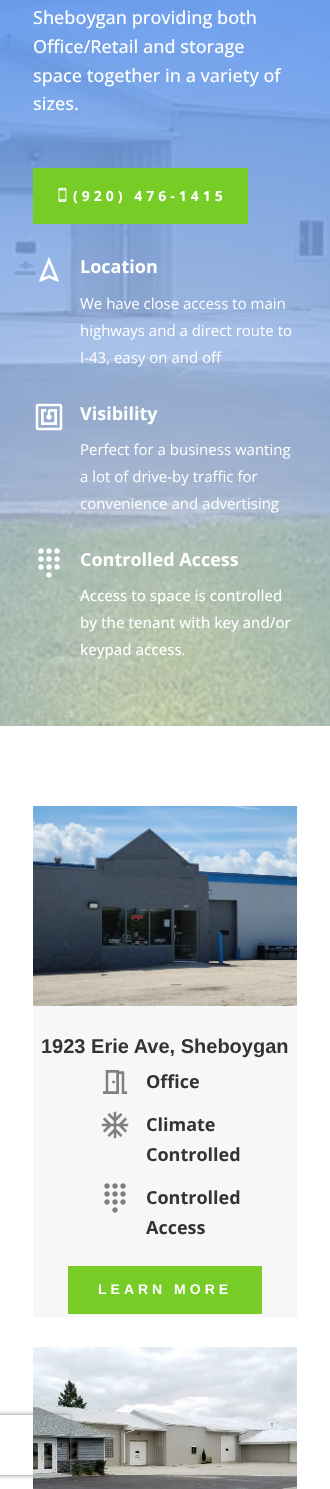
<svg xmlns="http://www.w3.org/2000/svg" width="330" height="1489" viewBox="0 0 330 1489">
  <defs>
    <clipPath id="clip1"><path d="M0 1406H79V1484H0ZM-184 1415H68C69 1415 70 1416 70 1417V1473C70 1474 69 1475 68 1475H-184C-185 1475-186 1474-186 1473V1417C-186 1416-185 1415-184 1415Z" clip-rule="evenodd"/></clipPath>
  </defs>
  <rect width="100%" height="100%" fill="rgb(255,255,255)"/>
  <image x="0" y="0" width="330" height="726" href="pic1.png"/>
  <g font-family="Open Sans" font-size="18" font-weight="500" fill="rgb(255,255,255)">
    <text>
      <tspan x="33" y="24">Sheboygan providing both</tspan>
      <tspan x="33" y="53">Office/Retail and storage</tspan>
      <tspan x="33" y="82">space together in a variety of</tspan>
      <tspan x="33" y="110">sizes.</tspan>
    </text>
  </g>
  <rect x="33" y="168" width="215" height="56" fill="rgb(119,204,38)"/>
  <image x="58" y="187" width="9" height="15" href="pic2.png"/>
  <text x="73" y="201" font-family="Open Sans" font-size="14" font-weight="bold" letter-spacing="4" fill="rgb(255,255,255)">(920) 476-1415</text>
  <image x="39" y="257" width="20" height="25" href="pic3.png"/>
  <text x="80" y="273" font-family="Open Sans" font-size="18" font-weight="bold" fill="rgb(255,255,255)">Location</text>
  <g font-family="Open Sans" font-size="15" fill="rgb(255,255,255)">
    <text>
      <tspan x="80" y="309">We have close access to main</tspan>
      <tspan x="80" y="336">highways and a direct route to</tspan>
      <tspan x="80" y="363">I-43, easy on and off</tspan>
    </text>
  </g>
  <image x="35" y="403" width="28" height="28" href="pic4.png"/>
  <text x="80" y="420" font-family="Open Sans" font-size="18" font-weight="bold" fill="rgb(255,255,255)">Visibility</text>
  <g font-family="Open Sans" font-size="15" fill="rgb(255,255,255)">
    <text>
      <tspan x="80" y="455">Perfect for a business wanting</tspan>
      <tspan x="80" y="482">a lot of drive-by traffic for</tspan>
      <tspan x="80" y="509">convenience and advertising</tspan>
    </text>
  </g>
  <image x="38" y="548" width="22" height="30" href="pic5.png"/>
  <text x="80" y="566" font-family="Open Sans" font-size="18" font-weight="bold" fill="rgb(255,255,255)">Controlled Access</text>
  <g font-family="Open Sans" font-size="15" font-weight="500" fill="rgb(255,255,255)">
    <text>
      <tspan x="80" y="601">Access to space is controlled</tspan>
      <tspan x="80" y="628">by the tenant with key and/or</tspan>
      <tspan x="80" y="655">keypad access.</tspan>
    </text>
  </g>
  <rect x="33" y="1006" width="264" height="311" fill="rgb(247,247,247)"/>
  <image x="33" y="806" width="264" height="200" href="pic6.png"/>
  <text x="41" y="1053" font-family="Liberation Sans" font-size="20" font-weight="bold" fill="rgb(51,51,51)">1923 Erie Ave, Sheboygan</text>
  <image x="103" y="1070" width="24" height="24" href="pic7.png"/>
  <text x="146" y="1088" font-family="Open Sans" font-size="18" font-weight="bold" fill="rgb(51,51,51)">Office</text>
  <image x="101" y="1111" width="28" height="28" href="pic8.png"/>
  <g font-family="Open Sans" font-size="18" font-weight="bold" fill="rgb(51,51,51)">
    <text>
      <tspan x="146" y="1131">Climate</tspan>
      <tspan x="146" y="1161">Controlled</tspan>
    </text>
  </g>
  <image x="104" y="1183" width="22" height="30" href="pic9.png"/>
  <g font-family="Open Sans" font-size="18" font-weight="bold" fill="rgb(51,51,51)">
    <text>
      <tspan x="146" y="1204">Controlled</tspan>
      <tspan x="146" y="1234">Access</tspan>
    </text>
  </g>
  <rect x="68" y="1266" width="194" height="48" fill="rgb(119,204,38)"/>
  <text x="98" y="1294" font-family="Arimo" font-size="14" font-weight="bold" letter-spacing="4" fill="rgb(255,255,255)">LEARN MORE</text>
  <image x="33" y="1347" width="264" height="142" href="pic10.png"/>
  <g clip-path="url(#clip1)">
    <rect x="-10" y="1415" width="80" height="60" rx="2" fill="rgb(128,128,128)" filter="blur(2.5px)"/>
  </g>
</svg>
